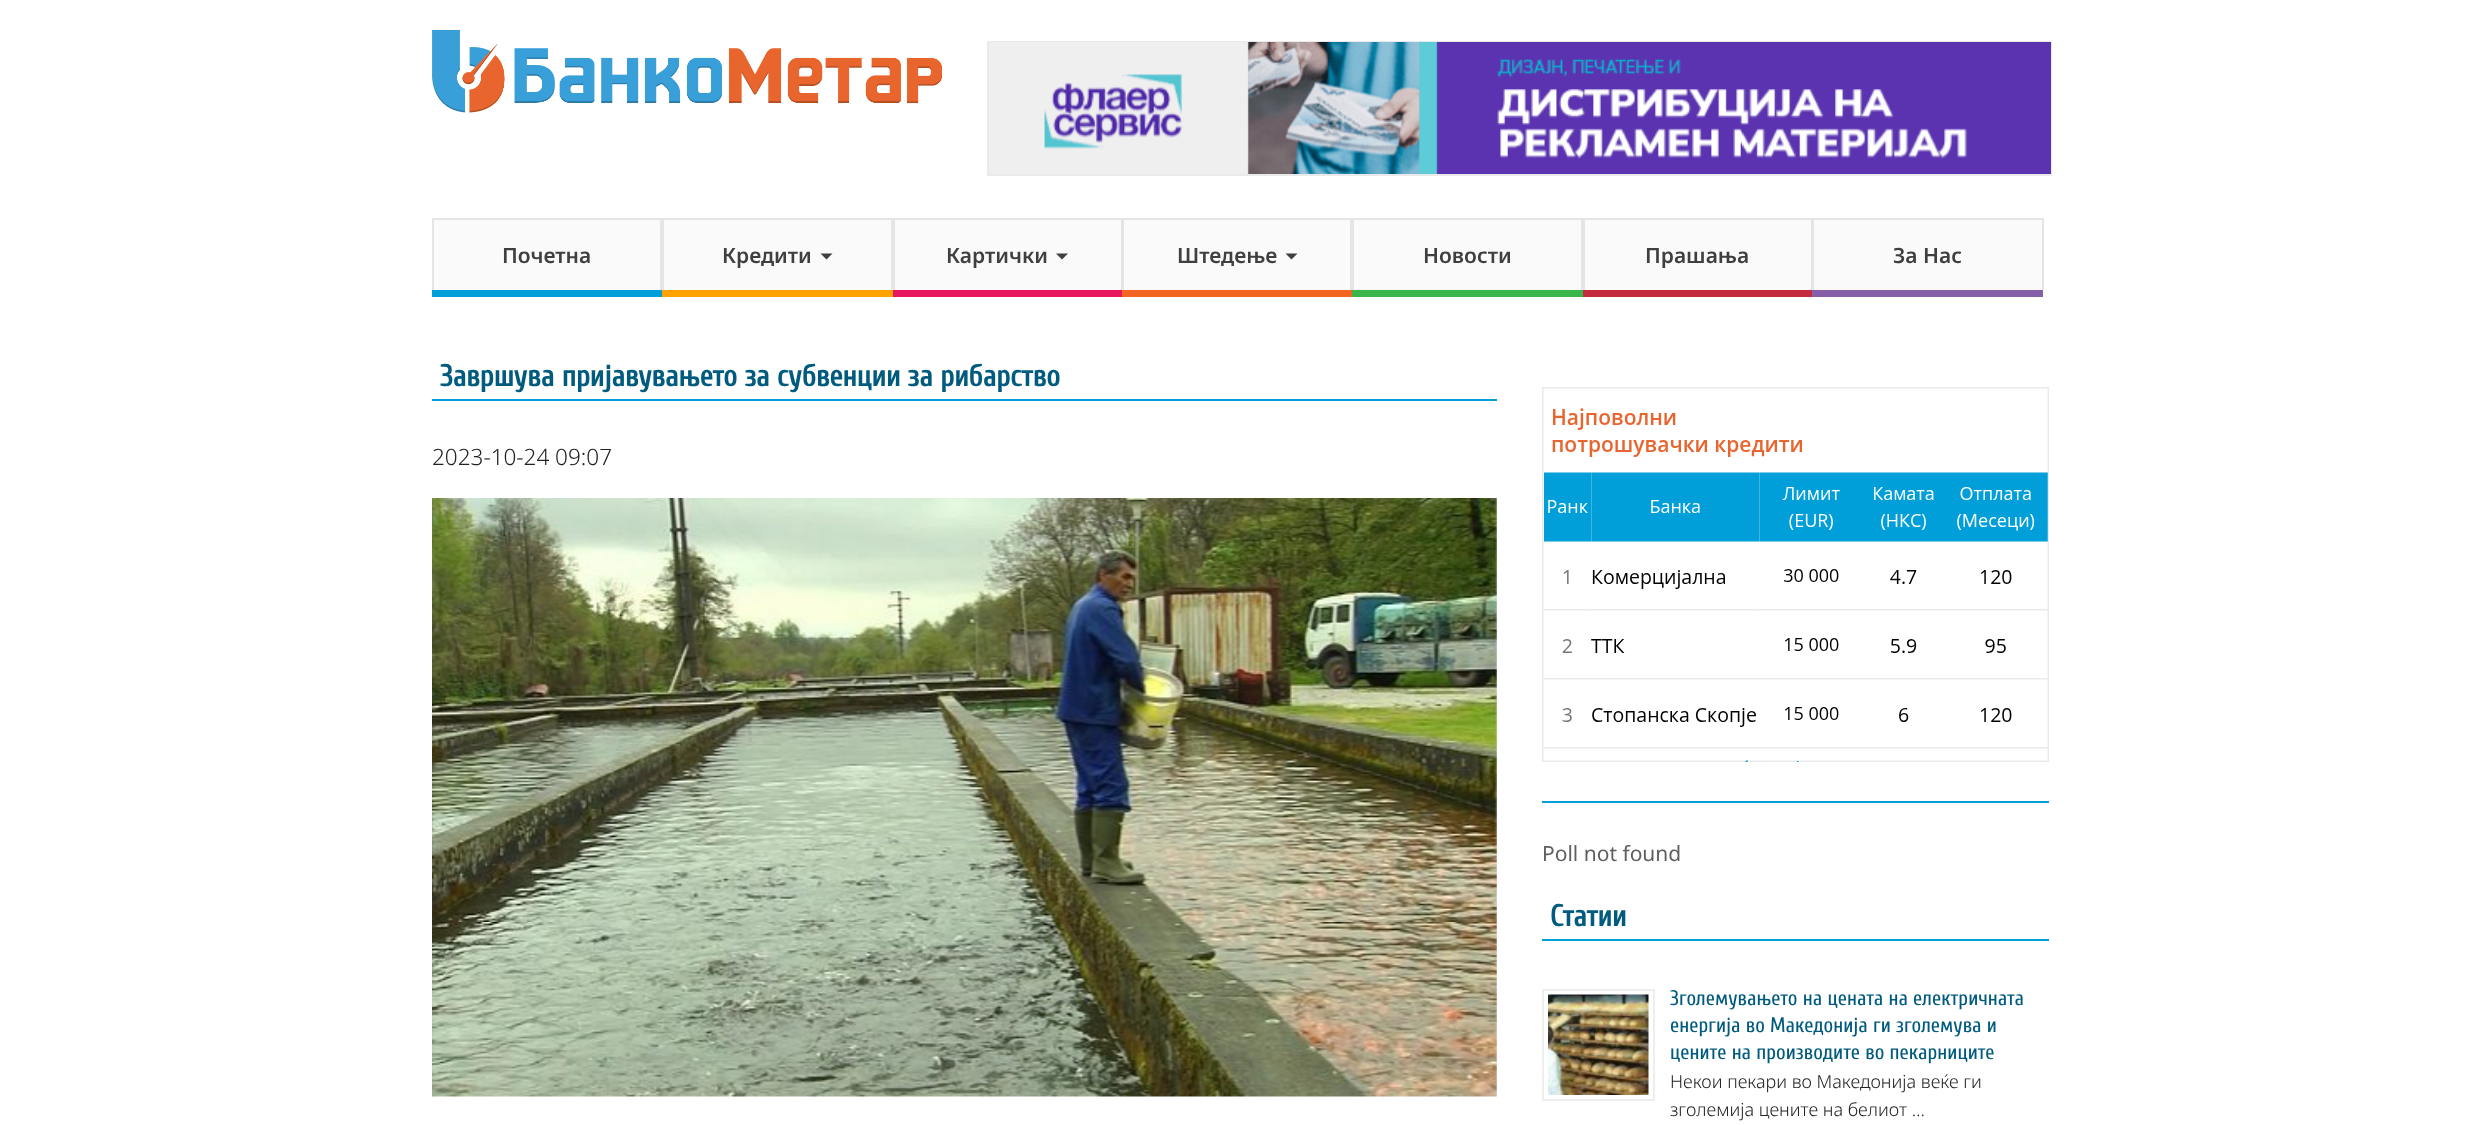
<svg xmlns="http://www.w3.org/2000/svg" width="2484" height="1125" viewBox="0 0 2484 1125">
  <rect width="100%" height="100%" fill="rgb(255,255,255)"/>
  <image x="432" y="30" width="510" height="83" href="pic1.png"/>
  <rect x="988" y="42" width="1063" height="133" fill="none" stroke="rgb(234,234,234)" stroke-width="2"/>
  <image x="989" y="42" width="1062" height="132" href="pic2.png"/>
  <rect x="432" y="290" width="230" height="7" fill="rgb(0,159,218)"/>
  <rect x="434" y="220" width="226" height="70" fill="rgb(250,250,250)"/>
  <rect x="432" y="218" width="1611" height="2" fill="rgb(229,229,229)"/>
  <rect x="660" y="218" width="4" height="72" fill="rgb(229,229,229)"/>
  <rect x="432" y="218" width="2" height="72" fill="rgb(229,229,229)"/>
  <text x="502" y="263" font-family="Noto Sans" font-size="21" font-weight="600" fill="rgb(63,63,63)">Почетна</text>
  <rect x="662" y="290" width="231" height="7" fill="rgb(255,162,0)"/>
  <rect x="664" y="220" width="227" height="70" fill="rgb(250,250,250)"/>
  <rect x="891" y="218" width="4" height="72" fill="rgb(229,229,229)"/>
  <text x="722" y="263" font-family="Noto Sans" font-size="21" font-weight="600" fill="rgb(63,63,63)">Кредити</text>
  <path d="M820.5 253.5H832.5L826.5 259.5Z" fill="rgb(63,63,63)"/>
  <rect x="893" y="290" width="229" height="7" fill="rgb(232,21,95)"/>
  <rect x="895" y="220" width="226" height="70" fill="rgb(250,250,250)"/>
  <rect x="1121" y="218" width="3" height="72" fill="rgb(229,229,229)"/>
  <text x="946" y="263" font-family="Noto Sans" font-size="21" font-weight="600" fill="rgb(63,63,63)">Картички</text>
  <path d="M1056 253.5H1068L1062 259.5Z" fill="rgb(63,63,63)"/>
  <rect x="1122" y="290" width="230" height="7" fill="rgb(242,101,34)"/>
  <rect x="1124" y="220" width="226" height="70" fill="rgb(250,250,250)"/>
  <rect x="1350" y="218" width="4" height="72" fill="rgb(229,229,229)"/>
  <text x="1177" y="263" font-family="Noto Sans" font-size="21" font-weight="600" fill="rgb(63,63,63)">Штедење</text>
  <path d="M1285.5 253.5H1297.5L1291.5 259.5Z" fill="rgb(63,63,63)"/>
  <rect x="1352" y="290" width="231" height="7" fill="rgb(57,181,74)"/>
  <rect x="1354" y="220" width="227" height="70" fill="rgb(250,250,250)"/>
  <rect x="1581" y="218" width="4" height="72" fill="rgb(229,229,229)"/>
  <text x="1423" y="263" font-family="Noto Sans" font-size="21" font-weight="600" fill="rgb(63,63,63)">Новости</text>
  <rect x="1583" y="290" width="229" height="7" fill="rgb(196,43,61)"/>
  <rect x="1585" y="220" width="226" height="70" fill="rgb(250,250,250)"/>
  <rect x="1811" y="218" width="3" height="72" fill="rgb(229,229,229)"/>
  <text x="1645" y="263" font-family="Noto Sans" font-size="21" font-weight="600" fill="rgb(63,63,63)">Прашања</text>
  <rect x="1812" y="290" width="231" height="7" fill="rgb(133,96,168)"/>
  <rect x="1814" y="220" width="228" height="70" fill="rgb(250,250,250)"/>
  <rect x="2042" y="218" width="2" height="72" fill="rgb(229,229,229)"/>
  <text x="1893" y="263" font-family="Noto Sans" font-size="21" font-weight="600" fill="rgb(63,63,63)">За Нас</text>
  <rect x="432" y="399" width="1065" height="2" fill="rgb(0,159,218)"/>
  <text x="440" y="386" font-family="Cuprum" font-size="30" font-weight="bold" fill="rgb(0,91,127)">Завршува пријавувањето за субвенции за рибарство</text>
  <text x="432" y="465" font-family="Noto Sans" font-size="22.5" font-weight="300" fill="rgb(34,34,34)">2023-10-24 09:07</text>
  <image x="432" y="498" width="1065" height="599" href="pic3.png"/>
  <image x="1542" y="387" width="507" height="375" href="pic4.png"/>
  <rect x="1542" y="801" width="507" height="2" fill="rgb(0,159,218)"/>
  <text x="1542" y="861" font-family="Noto Sans" font-size="21" fill="rgb(95,95,95)">Poll not found</text>
  <rect x="1542" y="939" width="507" height="2" fill="rgb(0,159,218)"/>
  <text x="1550" y="926" font-family="Cuprum" font-size="30" font-weight="bold" fill="rgb(0,91,127)">Статии</text>
  <rect x="1543" y="990" width="111" height="110" fill="none" stroke="rgb(238,238,238)" stroke-width="2"/>
  <image x="1548" y="994" width="101" height="101" href="pic5.png"/>
  <g font-family="Cuprum" font-size="21" fill="rgb(0,91,127)">
    <text>
      <tspan x="1670" y="1005">Зголемувањето на цената на електричната</tspan>
      <tspan x="1670" y="1032">енергија во Македонија ги зголемува и</tspan>
      <tspan x="1670" y="1059">цените на производите во пекарниците</tspan>
    </text>
  </g>
  <g font-family="Noto Sans" font-size="18" font-weight="300" fill="rgb(34,34,34)">
    <text>
      <tspan x="1670" y="1088">Некои пекари во Македонија веќе ги</tspan>
      <tspan x="1670" y="1116">зголемија цените на белиот …</tspan>
    </text>
  </g>
</svg>
